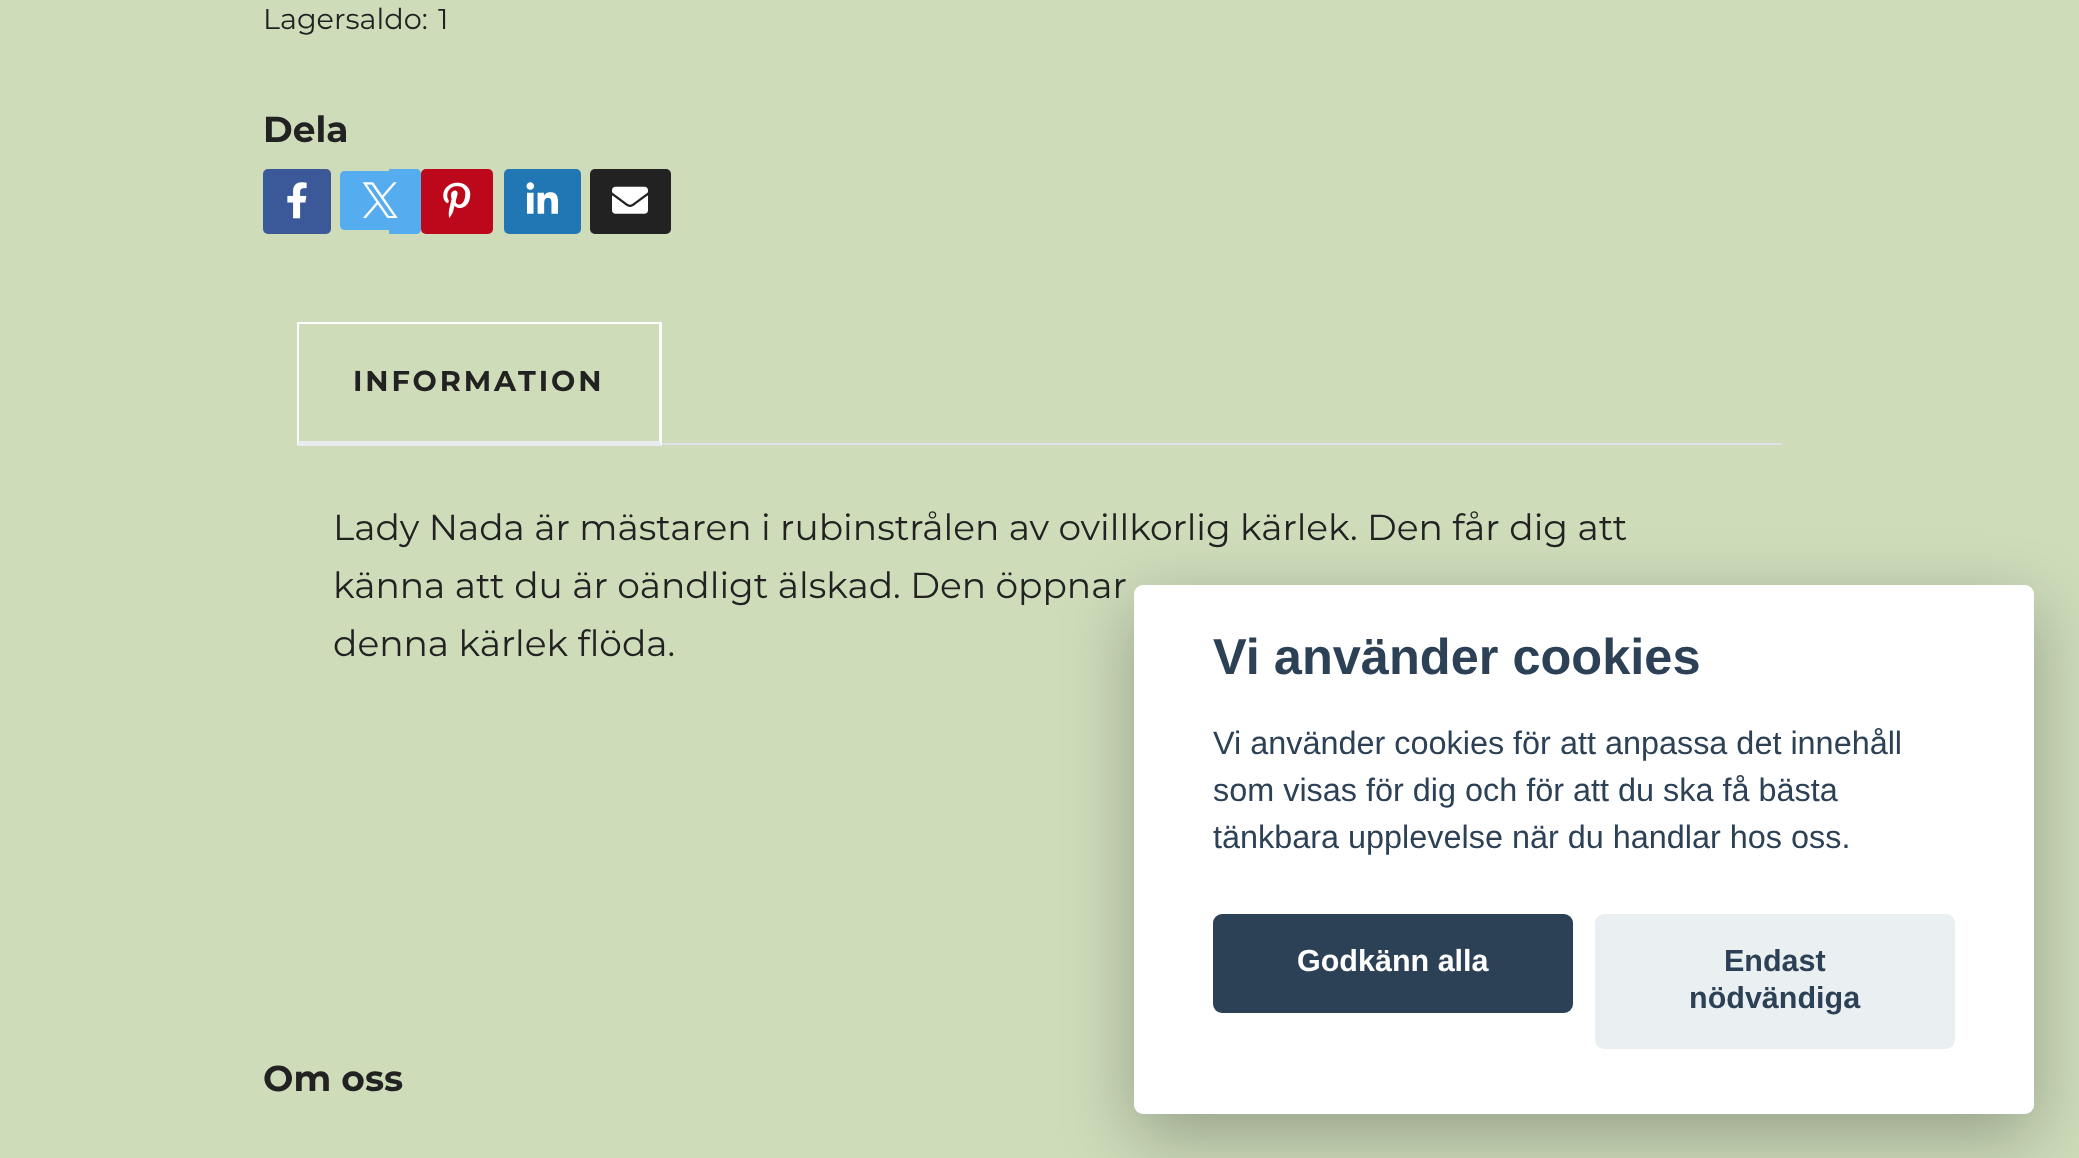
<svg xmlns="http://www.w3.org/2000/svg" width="2079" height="1158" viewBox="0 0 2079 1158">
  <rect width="100%" height="100%" fill="rgb(206,220,186)"/>
  <g font-family="Montserrat" font-size="28.75" fill="rgb(34,34,34)">
    <text x="263" y="29">Lagersaldo:</text>
    <text x="438" y="29">1</text>
  </g>
  <text x="263" y="142" font-family="Montserrat" font-size="36" font-weight="bold" fill="rgb(34,34,34)">Dela</text>
  <rect x="263" y="169" width="68" height="65" rx="5" fill="rgb(59,89,152)"/>
  <image x="287" y="182" width="20" height="37" href="pic1.png"/>
  <path d="M345 171H398V230H345C342 230 340 228 340 225V176C340 173 342 171 345 171Z" fill="rgb(85,172,238)"/>
  <path d="M389 169H416C419 169 421 171 421 174V229C421 232 419 234 416 234H389Z" fill="rgb(85,172,238)"/>
  <rect x="421" y="169" width="72" height="65" rx="5" fill="rgb(189,8,28)"/>
  <image x="443" y="182" width="28" height="36" href="pic2.png"/>
  <rect x="504" y="169" width="77" height="65" rx="5" fill="rgb(33,119,180)"/>
  <image x="526" y="182" width="32" height="32" href="pic3.png"/>
  <rect x="590" y="169" width="81" height="65" rx="5" fill="rgb(34,34,34)"/>
  <image x="612" y="186" width="36" height="28" href="pic4.png"/>
  <image x="362" y="182" width="36" height="36" href="pic5.png"/>
  <rect x="297" y="443" width="1485" height="2" fill="rgb(222,226,230)"/>
  <rect x="297" y="322" width="365" height="2" fill="rgb(255,255,255)"/>
  <path d="M662 322V446L659 441V324Z" fill="rgb(255,255,255)"/>
  <path d="M662 446H297L299 441H659Z" fill="rgb(233,236,239)"/>
  <path d="M297 446V322L299 324V441Z" fill="rgb(255,255,255)"/>
  <text x="353" y="391" font-family="Montserrat" font-size="28.75" font-weight="bold" letter-spacing="2.9" fill="rgb(34,34,34)">INFORMATION</text>
  <g font-family="Montserrat" font-size="36" fill="rgb(34,34,34)">
    <text>
      <tspan x="333" y="540">Lady Nada är mästaren i rubinstrålen av ovillkorlig kärlek. Den får dig att</tspan>
      <tspan x="333" y="598">känna att du är oändligt älskad. Den öppnar</tspan>
      <tspan x="333" y="656">denna kärlek flöda.</tspan>
    </text>
  </g>
  <rect x="1134" y="608" width="900" height="528" rx="9" fill="rgba(2,2,3,0.28)" filter="blur(34px)"/>
  <rect x="1134" y="585" width="900" height="529" rx="9" fill="rgb(255,255,255)"/>
  <text x="1213" y="674" font-family="Liberation Sans" font-size="50.5" font-weight="bold" fill="rgb(45,65,86)">Vi använder cookies</text>
  <g font-family="Liberation Sans" font-size="32.4" fill="rgb(45,65,86)">
    <text>
      <tspan x="1213" y="754">Vi använder cookies för att anpassa det innehåll</tspan>
      <tspan x="1213" y="801">som visas för dig och för att du ska få bästa</tspan>
      <tspan x="1213" y="848">tänkbara upplevelse när du handlar hos oss.</tspan>
    </text>
  </g>
  <rect x="1213" y="914" width="360" height="99" rx="9" fill="rgb(45,65,86)"/>
  <text x="1297" y="971" font-family="Liberation Sans" font-size="30.5" font-weight="bold" fill="rgb(255,255,255)">Godkänn alla</text>
  <rect x="1595" y="914" width="360" height="135" rx="9" fill="rgb(234,239,242)"/>
  <g font-family="Liberation Sans" font-size="30.5" font-weight="bold" fill="rgb(45,65,86)">
    <text x="1724" y="971">Endast</text>
    <text x="1689" y="1008">nödvändiga</text>
  </g>
  <text x="263" y="1091" font-family="Montserrat" font-size="36" font-weight="bold" fill="rgb(34,34,34)">Om oss</text>
</svg>
